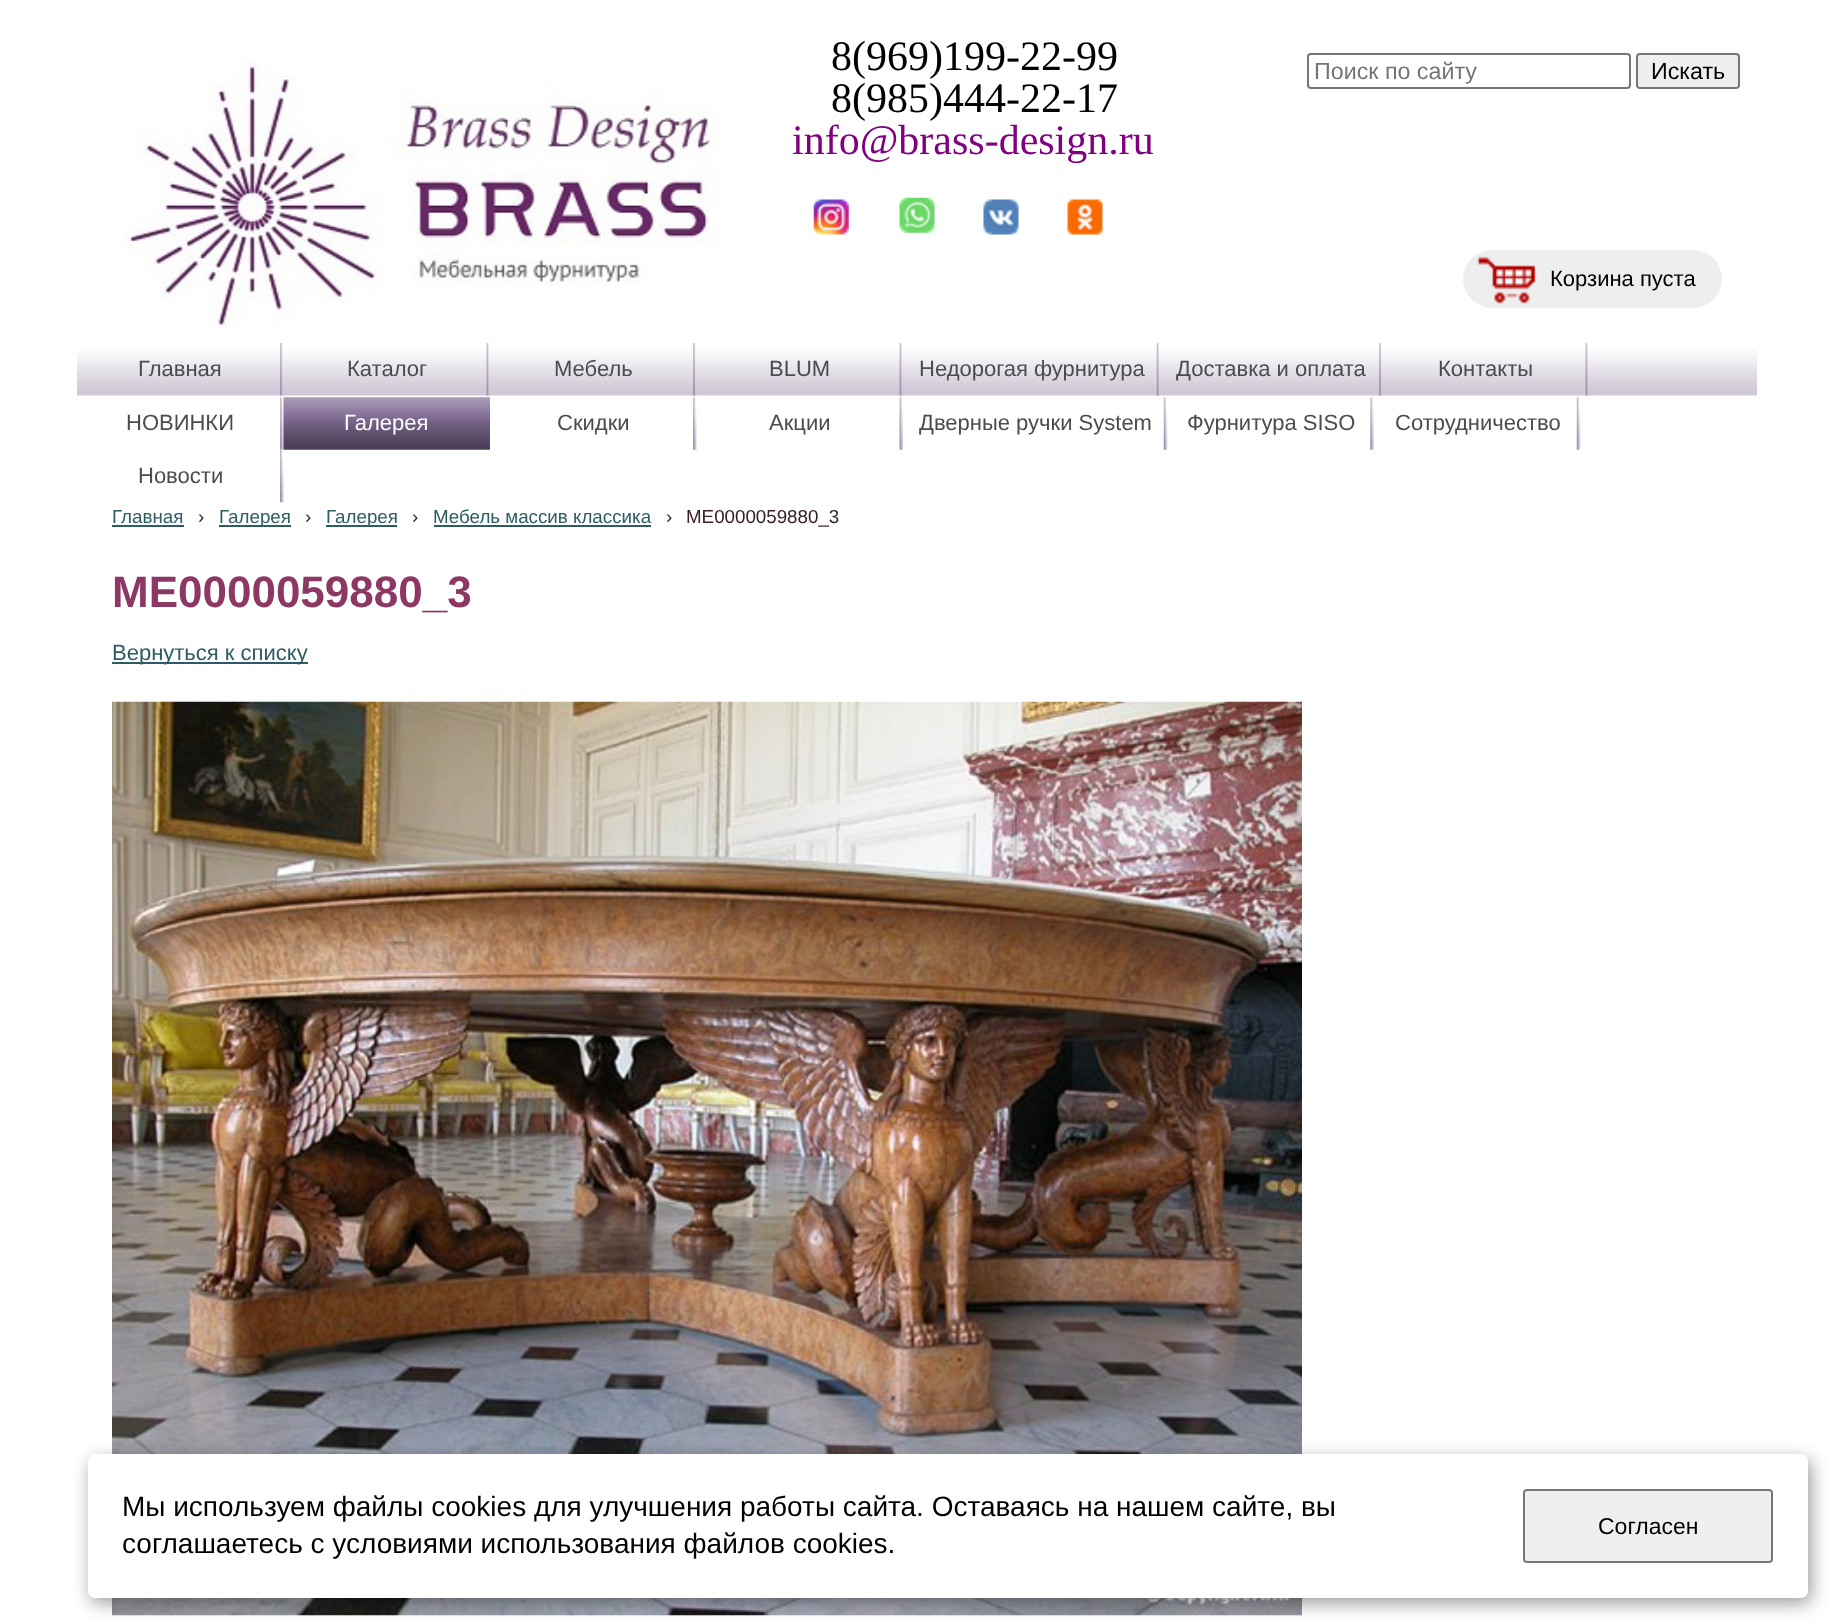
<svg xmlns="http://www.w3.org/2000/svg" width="1834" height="1624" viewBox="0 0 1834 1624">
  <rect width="100%" height="100%" fill="rgb(255,255,255)"/>
  <image x="124" y="49" width="597" height="280" href="pic1.png"/>
  <g font-family="Liberation Serif" font-size="42" fill="rgb(0,0,0)">
    <text>
      <tspan x="831" y="70">8(969)199-22-99</tspan>
      <tspan x="831" y="112">8(985)444-22-17</tspan>
    </text>
  </g>
  <text x="792" y="154" font-family="Liberation Serif" font-size="42" fill="rgb(128,0,128)">info@brass-design.ru</text>
  <rect x="1308" y="54" width="322" height="34" rx="3" fill="none" stroke="rgb(118,118,118)" stroke-width="2"/>
  <text x="1314" y="79" font-family="Liberation Sans" font-size="23.25" fill="rgb(117,117,117)">Поиск по сайту</text>
  <rect x="1637" y="54" width="102" height="34" rx="3" fill="rgb(239,239,239)" stroke="rgb(118,118,118)" stroke-width="2"/>
  <text x="1651" y="79" font-family="Liberation Sans" font-size="23.25" fill="rgb(0,0,0)">Искать</text>
  <rect x="1463" y="250" width="259" height="58" rx="29" fill="rgb(238,238,238)"/>
  <image x="1477" y="256" width="60" height="48" href="pic2.png"/>
  <text x="1550" y="286" font-family="Liberation Sans" font-size="22" fill="rgb(0,0,0)">Корзина пуста</text>
  <image x="813" y="199" width="36" height="36" href="pic3.png"/>
  <image x="899" y="197" width="36" height="36" href="pic4.png"/>
  <image x="983" y="199" width="36" height="36" href="pic5.png"/>
  <image x="1067" y="199" width="36" height="36" href="pic6.png"/>
  <image x="77" y="349" width="1680" height="47" href="pic7.png"/>
  <image x="280" y="343" width="4" height="53" href="pic8.png"/>
  <text x="138" y="376" font-family="Liberation Sans" font-size="22" fill="rgb(76,76,76)">Главная</text>
  <image x="486" y="343" width="4" height="53" href="pic9.png"/>
  <text x="347" y="376" font-family="Liberation Sans" font-size="22" fill="rgb(76,76,76)">Каталог</text>
  <image x="693" y="343" width="4" height="53" href="pic8.png"/>
  <text x="554" y="376" font-family="Liberation Sans" font-size="22" fill="rgb(76,76,76)">Мебель</text>
  <image x="899" y="343" width="4" height="53" href="pic9.png"/>
  <text x="769" y="376" font-family="Liberation Sans" font-size="22" fill="rgb(76,76,76)">BLUM</text>
  <image x="1156" y="343" width="4" height="53" href="pic10.png"/>
  <text x="919" y="376" font-family="Liberation Sans" font-size="22" fill="rgb(76,76,76)">Недорогая фурнитура</text>
  <image x="1379" y="343" width="4" height="53" href="pic8.png"/>
  <text x="1176" y="376" font-family="Liberation Sans" font-size="22" fill="rgb(76,76,76)">Доставка и оплата</text>
  <image x="1585" y="343" width="4" height="53" href="pic9.png"/>
  <text x="1438" y="376" font-family="Liberation Sans" font-size="22" fill="rgb(76,76,76)">Контакты</text>
  <image x="280" y="397" width="4" height="53" href="pic11.png"/>
  <text x="126" y="430" font-family="Liberation Sans" font-size="22" fill="rgb(76,76,76)">НОВИНКИ</text>
  <image x="283" y="397" width="207" height="53" href="pic12.png"/>
  <text x="344" y="430" font-family="Liberation Sans" font-size="22" fill="rgb(255,255,255)">Галерея</text>
  <image x="693" y="397" width="4" height="53" href="pic11.png"/>
  <text x="557" y="430" font-family="Liberation Sans" font-size="22" fill="rgb(76,76,76)">Скидки</text>
  <image x="899" y="397" width="4" height="53" href="pic13.png"/>
  <text x="769" y="430" font-family="Liberation Sans" font-size="22" fill="rgb(76,76,76)">Акции</text>
  <image x="1163" y="397" width="5" height="53" href="pic14.png"/>
  <text x="919" y="430" font-family="Liberation Sans" font-size="22" fill="rgb(76,76,76)">Дверные ручки System</text>
  <image x="1370" y="397" width="4" height="53" href="pic15.png"/>
  <text x="1187" y="430" font-family="Liberation Sans" font-size="22" fill="rgb(76,76,76)">Фурнитура SISO</text>
  <image x="1576" y="397" width="5" height="53" href="pic14.png"/>
  <text x="1395" y="430" font-family="Liberation Sans" font-size="22" fill="rgb(76,76,76)">Сотрудничество</text>
  <image x="280" y="449" width="4" height="54" href="pic16.png"/>
  <text x="138" y="483" font-family="Liberation Sans" font-size="22" fill="rgb(76,76,76)">Новости</text>
  <text x="112" y="523" font-family="Liberation Sans" font-size="18.75" fill="rgb(46,92,100)">Главная</text>
  <rect x="112" y="525" width="72" height="2" fill="rgb(46,92,100)"/>
  <text x="198" y="523" font-family="Liberation Sans" font-size="18.75" fill="rgb(56,32,43)">›</text>
  <rect x="219" y="525" width="72" height="2" fill="rgb(46,92,100)"/>
  <text x="219" y="523" font-family="Liberation Sans" font-size="18.75" fill="rgb(46,92,100)">Галерея</text>
  <text x="305" y="523" font-family="Liberation Sans" font-size="18.75" fill="rgb(56,32,43)">›</text>
  <rect x="326" y="525" width="71" height="2" fill="rgb(46,92,100)"/>
  <text x="326" y="523" font-family="Liberation Sans" font-size="18.75" fill="rgb(46,92,100)">Галерея</text>
  <text x="412" y="523" font-family="Liberation Sans" font-size="18.75" fill="rgb(56,32,43)">›</text>
  <text x="433" y="523" font-family="Liberation Sans" font-size="18.75" fill="rgb(46,92,100)">Мебель массив классика</text>
  <rect x="434" y="525" width="217" height="2" fill="rgb(46,92,100)"/>
  <g font-family="Liberation Sans" font-size="18.75" fill="rgb(56,32,43)">
    <text x="666" y="523">›</text>
    <text x="686" y="523">ME0000059880_3</text>
  </g>
  <text x="112" y="607" font-family="Liberation Sans" font-size="44" font-weight="bold" fill="rgb(141,56,100)">ME0000059880_3</text>
  <rect x="112" y="662" width="196" height="2" fill="rgb(46,92,100)"/>
  <text x="112" y="660" font-family="Liberation Sans" font-size="22" fill="rgb(46,92,100)">Вернуться к списку</text>
  <image x="112" y="701" width="1190" height="915" href="pic17.png"/>
  <rect x="91" y="1460" width="1720" height="143" rx="7" fill="rgba(0,0,0,0.4)" filter="blur(9px)"/>
  <rect x="88" y="1454" width="1720" height="144" rx="7" fill="rgb(255,255,255)"/>
  <g font-family="Liberation Sans" font-size="28" fill="rgb(0,0,0)">
    <text>
      <tspan x="122" y="1516">Мы используем файлы cookies для улучшения работы сайта. Оставаясь на нашем сайте, вы</tspan>
      <tspan x="122" y="1553">соглашаетесь с условиями использования файлов cookies.</tspan>
    </text>
  </g>
  <rect x="1524" y="1490" width="248" height="72" rx="3" fill="rgb(239,239,239)" stroke="rgb(118,118,118)" stroke-width="2"/>
  <text x="1598" y="1534" font-family="Liberation Sans" font-size="23" fill="rgb(0,0,0)">Согласен</text>
</svg>
